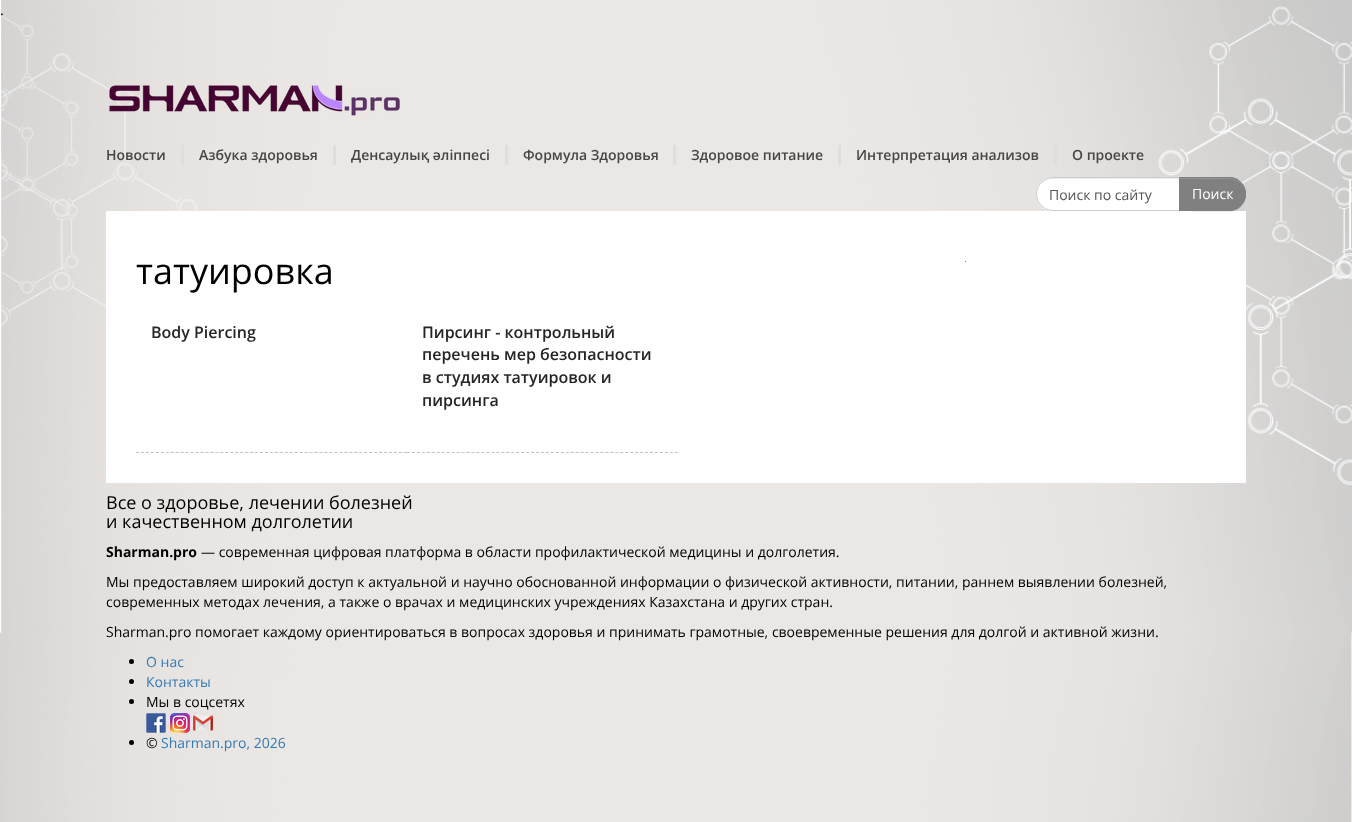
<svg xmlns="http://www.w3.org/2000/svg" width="1352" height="822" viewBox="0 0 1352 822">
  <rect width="100%" height="100%" fill="rgb(255,255,255)"/>
  <image x="0" y="0" width="1352" height="822" href="pic1.png"/>
  <text x="0" y="15" font-family="Open Sans" font-size="14" fill="rgb(0,0,0)">.</text>
  <image x="109" y="85" width="291" height="31" href="pic2.png"/>
  <rect x="181" y="145" width="3" height="20" fill="rgb(223,222,221)"/>
  <text x="106" y="160" font-family="Open Sans" font-size="14" font-weight="600" fill="rgb(70,70,70)">Новости</text>
  <rect x="333" y="145" width="3" height="20" fill="rgb(223,222,221)"/>
  <text x="199" y="160" font-family="Open Sans" font-size="14" font-weight="600" fill="rgb(70,70,70)">Азбука здоровья</text>
  <rect x="505" y="145" width="3" height="20" fill="rgb(223,222,221)"/>
  <text x="351" y="160" font-family="Open Sans" font-size="14" font-weight="600" fill="rgb(70,70,70)">Денсаулық әліппесі</text>
  <rect x="673" y="145" width="3" height="20" fill="rgb(223,222,221)"/>
  <text x="523" y="160" font-family="Open Sans" font-size="14" font-weight="600" fill="rgb(70,70,70)">Формула Здоровья</text>
  <rect x="838" y="145" width="3" height="20" fill="rgb(223,222,221)"/>
  <text x="691" y="160" font-family="Open Sans" font-size="14" font-weight="600" fill="rgb(70,70,70)">Здоровое питание</text>
  <rect x="1054" y="145" width="3" height="20" fill="rgb(223,222,221)"/>
  <g font-family="Open Sans" font-size="14" font-weight="600" fill="rgb(70,70,70)">
    <text x="856" y="160">Интерпретация анализов</text>
    <text x="1072" y="160">О проекте</text>
  </g>
  <path d="M1053 177H1180V211H1053C1043.5 211 1036 203.5 1036 194C1036 184.5 1043.5 177 1053 177Z" fill="rgb(255,255,255)"/>
  <path d="M1053 179H1179V178H1053C1044 178 1037 185 1037 194C1037 186 1044 179 1053 179Z" fill="rgb(236,236,236)"/>
  <path d="M1053 177.5H1179.5V210.5H1053C1044 210.5 1036.5 203 1036.5 194C1036.5 185 1044 177.5 1053 177.5Z" fill="none" stroke="rgb(204,204,204)"/>
  <text x="1049" y="200" font-family="Open Sans" font-size="14" fill="rgb(85,85,85)">Поиск по сайту</text>
  <rect x="106" y="211" width="1140" height="272" fill="rgb(255,255,255)"/>
  <rect x="1179" y="178" width="67" height="34" rx="17" fill="rgba(0,0,0,0.07)" filter="blur(0.5px)"/>
  <path d="M1179 177H1229C1238.5 177 1246 184.5 1246 194C1246 203.5 1238.5 211 1229 211H1179Z" fill="rgb(128,128,128)"/>
  <path d="M1180 179H1229C1238 179 1245 186 1245 194C1245 185 1238 178 1229 178H1180Z" fill="rgb(147,147,147)"/>
  <path d="M1179.5 177.5H1229C1238 177.5 1245.5 185 1245.5 194C1245.5 203 1238 210.5 1229 210.5H1179.5Z" fill="none" stroke="rgb(128,128,128)"/>
  <text x="1192" y="199" font-family="Open Sans" font-size="14" fill="rgb(255,255,255)">Поиск</text>
  <rect x="965" y="261" width="1" height="1" fill="rgb(128,128,128)"/>
  <text x="136" y="284" font-family="Open Sans" font-size="36" fill="rgb(0,0,0)">татуировка</text>
  <path d="M136 452.5H407" fill="none" stroke="rgb(194,194,194)" stroke-dasharray="3 1.96"/>
  <text x="151" y="338" font-family="Open Sans" font-size="16" font-weight="600" fill="rgb(37,37,37)">Body Piercing</text>
  <path d="M407 452.5H678" fill="none" stroke="rgb(194,194,194)" stroke-dasharray="3 1.96"/>
  <g font-family="Open Sans" font-size="16" font-weight="600" fill="rgb(37,37,37)">
    <text>
      <tspan x="422" y="338">Пирсинг - контрольный</tspan>
      <tspan x="422" y="360">перечень мер безопасности</tspan>
      <tspan x="422" y="383">в студиях татуировок и</tspan>
      <tspan x="422" y="406">пирсинга</tspan>
    </text>
  </g>
  <g font-family="Open Sans" font-size="18" fill="rgb(0,0,0)">
    <text>
      <tspan x="106" y="509">Все о здоровье, лечении болезней</tspan>
      <tspan x="106" y="528">и качественном долголетии</tspan>
    </text>
  </g>
  <text x="106" y="557" font-family="Open Sans" font-size="14" font-weight="bold" fill="rgb(0,0,0)">Sharman.pro</text>
  <g font-family="Open Sans" font-size="14" fill="rgb(0,0,0)">
    <text x="201" y="557">— современная цифровая платформа в области профилактической медицины и долголетия.</text>
    <text>
      <tspan x="106" y="587">Мы предоставляем широкий доступ к актуальной и научно обоснованной информации о физической активности, питании, раннем выявлении болезней,</tspan>
      <tspan x="106" y="607">современных методах лечения, а также о врачах и медицинских учреждениях Казахстана и других стран.</tspan>
    </text>
    <text x="106" y="637">Sharman.pro помогает каждому ориентироваться в вопросах здоровья и принимать грамотные, своевременные решения для долгой и активной жизни.</text>
  </g>
  <circle cx="131.5" cy="661.5" r="2.5" fill="rgb(0,0,0)"/>
  <text x="146" y="667" font-family="Open Sans" font-size="14" fill="rgb(51,122,183)">О нас</text>
  <circle cx="131.5" cy="681.5" r="2.5" fill="rgb(0,0,0)"/>
  <text x="146" y="687" font-family="Open Sans" font-size="14" fill="rgb(51,122,183)">Контакты</text>
  <circle cx="131.5" cy="701.5" r="2.5" fill="rgb(0,0,0)"/>
  <text x="146" y="707" font-family="Open Sans" font-size="14" fill="rgb(0,0,0)">Мы в соцсетях</text>
  <image x="146" y="713" width="20" height="20" href="pic3.png"/>
  <image x="170" y="713" width="20" height="20" href="pic4.png"/>
  <image x="193" y="715" width="20" height="16" href="pic5.png"/>
  <circle cx="131.5" cy="742.5" r="2.5" fill="rgb(0,0,0)"/>
  <text x="146" y="748" font-family="Open Sans" font-size="14" fill="rgb(0,0,0)">©</text>
  <text x="161" y="748" font-family="Open Sans" font-size="14" fill="rgb(51,122,183)">Sharman.pro, 2026</text>
</svg>
